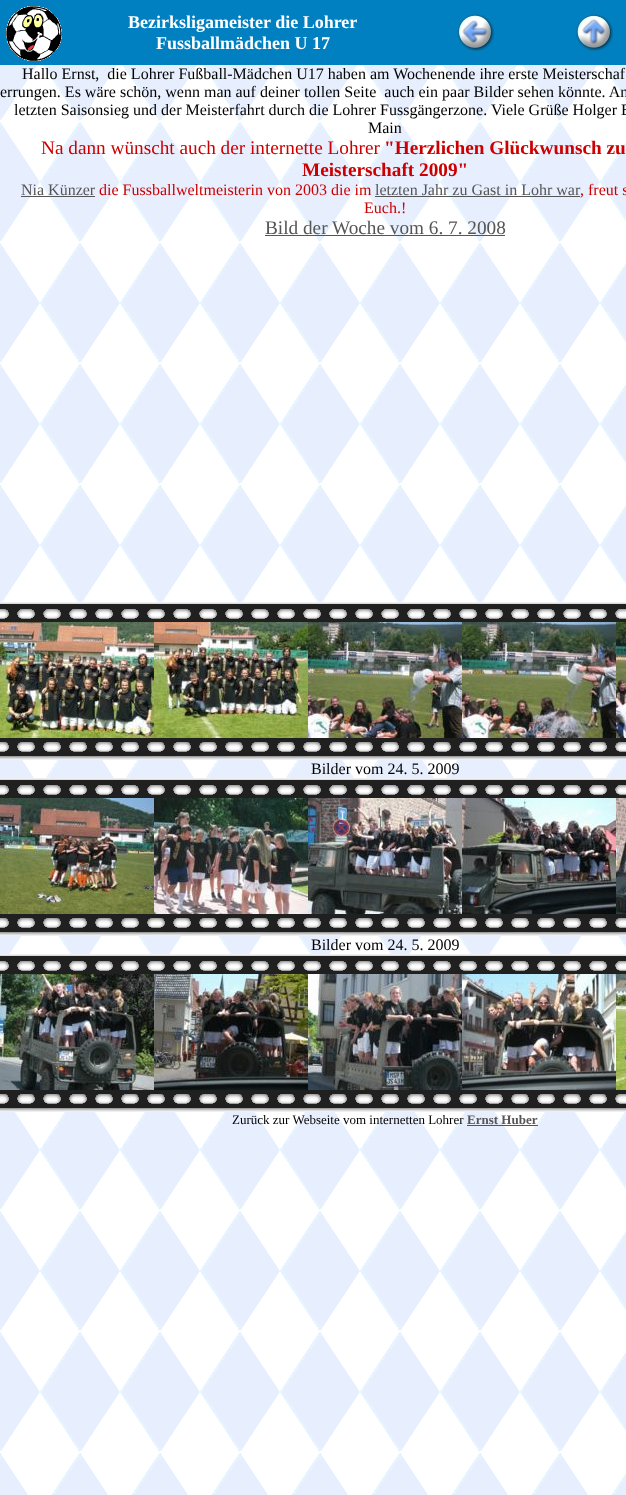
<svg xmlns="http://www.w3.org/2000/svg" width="626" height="1495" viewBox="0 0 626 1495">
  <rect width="100%" height="100%" fill="rgb(255,255,255)"/>
  <image x="0" y="65" width="626" height="1430" href="pic1.png"/>
  <rect x="0" y="0" width="626" height="65" fill="rgb(0,128,192)"/>
  <image x="6" y="6" width="56" height="55" href="pic2.png"/>
  <g font-family="Liberation Serif" font-size="18" font-weight="bold" fill="rgb(255,255,255)">
    <text x="128" y="28">Bezirksligameister die Lohrer</text>
    <text x="156" y="49">Fussballmädchen U 17</text>
  </g>
  <image x="457" y="14" width="37" height="37" href="pic3.png"/>
  <image x="576" y="14" width="37" height="37" href="pic4.png"/>
  <g font-family="Liberation Serif" font-size="16" fill="rgb(0,0,0)">
    <text x="22" y="79" xml:space="preserve">Hallo Ernst,  die Lohrer Fußball-Mädchen U17 haben am Wochenende ihre erste Meisterschaf</text>
    <text x="0" y="97" xml:space="preserve">errungen. Es wäre schön, wenn man auf deiner tollen Seite  auch ein paar Bilder sehen könnte. An</text>
    <text x="14" y="115">letzten Saisonsieg und der Meisterfahrt durch die Lohrer Fussgängerzone. Viele Grüße Holger B</text>
    <text x="368" y="133">Main</text>
  </g>
  <text x="41" y="154" font-family="Liberation Serif" font-size="19.25" fill="rgb(204,0,0)">Na dann wünscht auch der internette Lohrer</text>
  <g font-family="Liberation Serif" font-size="19.25" font-weight="bold" fill="rgb(204,0,0)">
    <text x="384" y="154">"Herzlichen Glückwunsch zu</text>
    <text x="302" y="176">Meisterschaft 2009"</text>
  </g>
  <text x="21" y="195" font-family="Liberation Serif" font-size="16" fill="rgb(85,85,85)">Nia Künzer</text>
  <rect x="21" y="196" width="74" height="1" fill="rgb(85,85,85)"/>
  <text x="99" y="195" font-family="Liberation Serif" font-size="16" fill="rgb(204,0,0)">die Fussballweltmeisterin von 2003 die im</text>
  <text x="375" y="195" font-family="Liberation Serif" font-size="16" fill="rgb(85,85,85)">letzten Jahr zu Gast in Lohr war</text>
  <text x="580" y="195" font-family="Liberation Serif" font-size="16" fill="rgb(204,0,0)">, freut s</text>
  <rect x="375" y="196" width="205" height="1" fill="rgb(85,85,85)"/>
  <text x="364" y="213" font-family="Liberation Serif" font-size="16" fill="rgb(204,0,0)">Euch.!</text>
  <text x="265" y="234" font-family="Liberation Serif" font-size="19.25" fill="rgb(85,85,85)">Bild der Woche vom 6. 7. 2008</text>
  <rect x="265" y="235" width="240" height="1" fill="rgb(85,85,85)"/>
  <image x="0" y="602" width="626" height="20" href="pic5.png"/>
  <image x="0" y="622" width="154" height="116" href="pic6.png"/>
  <image x="154" y="622" width="154" height="116" href="pic7.png"/>
  <image x="308" y="622" width="154" height="116" href="pic8.png"/>
  <image x="462" y="622" width="154" height="116" href="pic9.png"/>
  <image x="616" y="622" width="10" height="116" href="pic10.png"/>
  <image x="0" y="738" width="626" height="22" href="pic11.png"/>
  <text x="311" y="774" font-family="Liberation Serif" font-size="16" fill="rgb(0,0,0)">Bilder vom 24. 5. 2009</text>
  <image x="0" y="778" width="626" height="20" href="pic5.png"/>
  <image x="0" y="798" width="154" height="116" href="pic12.png"/>
  <image x="154" y="798" width="154" height="116" href="pic13.png"/>
  <image x="308" y="798" width="154" height="116" href="pic14.png"/>
  <image x="462" y="798" width="154" height="116" href="pic15.png"/>
  <image x="616" y="798" width="10" height="116" href="pic16.png"/>
  <image x="0" y="914" width="626" height="22" href="pic11.png"/>
  <text x="311" y="950" font-family="Liberation Serif" font-size="16" fill="rgb(0,0,0)">Bilder vom 24. 5. 2009</text>
  <image x="0" y="954" width="626" height="20" href="pic5.png"/>
  <image x="0" y="974" width="154" height="116" href="pic17.png"/>
  <image x="154" y="974" width="154" height="116" href="pic18.png"/>
  <image x="308" y="974" width="154" height="116" href="pic19.png"/>
  <image x="462" y="974" width="154" height="116" href="pic20.png"/>
  <image x="616" y="974" width="10" height="116" href="pic21.png"/>
  <image x="0" y="1090" width="626" height="22" href="pic11.png"/>
  <text x="232" y="1124" font-family="Liberation Serif" font-size="13" fill="rgb(0,0,0)">Zurück zur Webseite vom internetten Lohrer</text>
  <text x="467" y="1124" font-family="Liberation Serif" font-size="13" font-weight="bold" fill="rgb(85,85,85)">Ernst Huber</text>
  <rect x="467" y="1125" width="71" height="1" fill="rgb(85,85,85)"/>
</svg>
